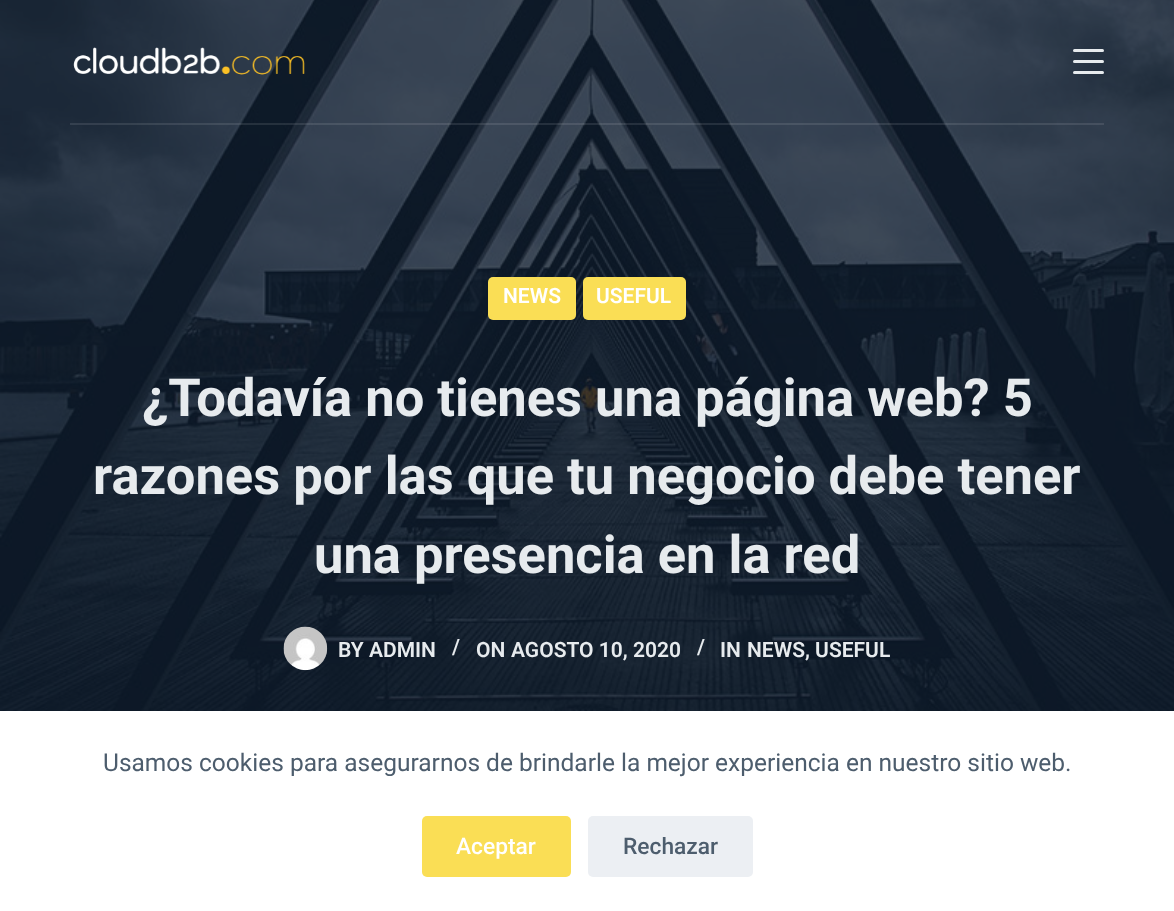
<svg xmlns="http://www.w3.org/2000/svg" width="1174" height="911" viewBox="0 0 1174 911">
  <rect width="100%" height="100%" fill="rgb(255,255,255)"/>
  <image x="0" y="0" width="1174" height="711" href="pic2.png"/>
  <rect x="70" y="123" width="1034" height="2" fill="rgba(255,255,255,0.1)"/>
  <image x="73" y="47" width="232" height="28" href="pic1.png"/>
  <rect x="1073" y="49" width="31" height="3" rx="1.5" fill="rgb(231,235,238)"/>
  <rect x="1073" y="60" width="31" height="3" rx="1.5" fill="rgb(231,235,238)"/>
  <rect x="1073" y="71" width="31" height="3" rx="1.5" fill="rgb(231,235,238)"/>
  <rect x="488" y="277" width="88" height="43" rx="5" fill="rgb(250,222,85)"/>
  <text x="503" y="303" font-family="Roboto" font-size="21" font-weight="600" fill="rgb(255,255,255)">NEWS</text>
  <rect x="583" y="277" width="103" height="43" rx="5" fill="rgb(250,222,85)"/>
  <text x="596" y="303" font-family="Roboto" font-size="21" font-weight="600" fill="rgb(255,255,255)">USEFUL</text>
  <g font-family="Roboto" font-size="52.5" font-weight="bold" fill="rgb(231,235,238)">
    <text x="142" y="416">¿Todavía no tienes una página web? 5</text>
    <text x="93" y="494">razones por las que tu negocio debe tener</text>
    <text x="314" y="573">una presencia en la red</text>
  </g>
  <image x="283" y="626" width="45" height="45" href="pic3.png"/>
  <g font-family="Roboto" font-size="21" font-weight="600" fill="rgb(231,235,238)">
    <text x="338" y="657">BY</text>
    <text x="369" y="657">ADMIN</text>
    <text x="452" y="654">/</text>
    <text x="476" y="657">ON</text>
    <text x="511" y="657">AGOSTO 10, 2020</text>
    <text x="697" y="654">/</text>
    <text x="720" y="657">IN</text>
    <text x="747" y="657">NEWS, USEFUL</text>
  </g>
  <text x="103" y="771" font-family="Roboto" font-size="24.5" fill="rgb(77,93,109)">Usamos cookies para asegurarnos de brindarle la mejor experiencia en nuestro sitio web.</text>
  <rect x="422" y="816" width="149" height="61" rx="5" fill="rgb(250,222,85)"/>
  <text x="456" y="854" font-family="Roboto" font-size="22.75" font-weight="500" fill="rgb(255,255,255)">Aceptar</text>
  <rect x="588" y="816" width="165" height="61" rx="5" fill="rgb(236,239,243)"/>
  <text x="623" y="854" font-family="Roboto" font-size="22.75" font-weight="500" fill="rgb(77,93,109)">Rechazar</text>
</svg>
